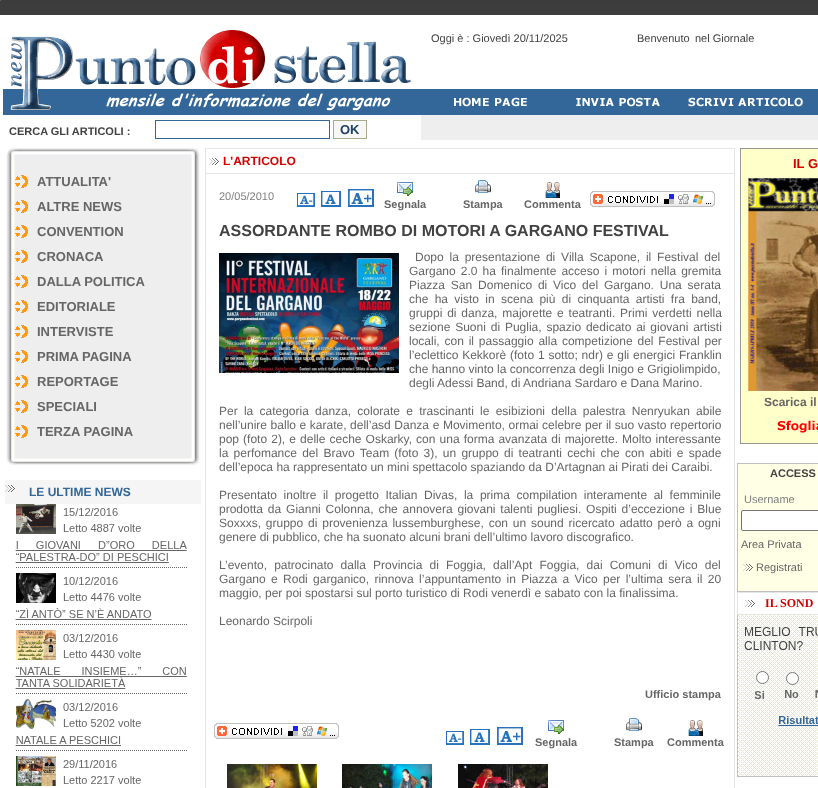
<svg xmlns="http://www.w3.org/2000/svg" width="818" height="788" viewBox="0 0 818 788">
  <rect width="100%" height="100%" fill="rgb(255,255,255)"/>
  <image x="0" y="0" width="818" height="15" href="pic1.png"/>
  <rect x="0" y="0" width="1" height="1" fill="rgb(98,98,98)"/>
  <image x="3" y="30" width="425" height="85" href="pic2.png"/>
  <g font-family="Liberation Sans" font-size="11" fill="rgb(66,66,66)">
    <text x="431" y="42">Oggi è : Giovedì 20/11/2025</text>
    <text x="637" y="42">Benvenuto</text>
    <text x="695" y="42">nel Giornale</text>
  </g>
  <rect x="428" y="89" width="390" height="26" fill="rgb(51,102,153)"/>
  <image x="454" y="97" width="73" height="10" href="pic3.png"/>
  <image x="576" y="97" width="84" height="10" href="pic4.png"/>
  <image x="688" y="97" width="115" height="10" href="pic5.png"/>
  <text x="9" y="135" font-family="Liberation Sans" font-size="11" font-weight="bold" fill="rgb(66,66,66)">CERCA GLI ARTICOLI :</text>
  <rect x="155.5" y="120.5" width="174" height="18" fill="none" stroke="rgb(51,102,153)"/>
  <rect x="333.5" y="120.5" width="33" height="18" fill="rgb(247,247,247)" stroke="rgb(167,171,136)"/>
  <text x="340" y="134" font-family="Liberation Sans" font-size="13" font-weight="bold" fill="rgb(33,66,99)">OK</text>
  <rect x="421" y="115" width="397" height="25" fill="rgb(238,238,238)"/>
  <image x="6" y="148" width="194" height="7" href="pic6.png"/>
  <image x="6" y="155" width="194" height="303" href="pic7.png"/>
  <image x="15" y="175" width="13" height="13" href="pic8.png"/>
  <text x="37" y="186" font-family="Liberation Sans" font-size="13" font-weight="bold" fill="rgb(102,102,102)">ATTUALITA'</text>
  <image x="15" y="200" width="13" height="13" href="pic8.png"/>
  <text x="37" y="211" font-family="Liberation Sans" font-size="13" font-weight="bold" fill="rgb(102,102,102)">ALTRE NEWS</text>
  <image x="15" y="225" width="13" height="13" href="pic8.png"/>
  <text x="37" y="236" font-family="Liberation Sans" font-size="13" font-weight="bold" fill="rgb(102,102,102)">CONVENTION</text>
  <image x="15" y="250" width="13" height="13" href="pic8.png"/>
  <text x="37" y="261" font-family="Liberation Sans" font-size="13" font-weight="bold" fill="rgb(102,102,102)">CRONACA</text>
  <image x="15" y="275" width="13" height="13" href="pic8.png"/>
  <text x="37" y="286" font-family="Liberation Sans" font-size="13" font-weight="bold" fill="rgb(102,102,102)">DALLA POLITICA</text>
  <image x="15" y="300" width="13" height="13" href="pic8.png"/>
  <text x="37" y="311" font-family="Liberation Sans" font-size="13" font-weight="bold" fill="rgb(102,102,102)">EDITORIALE</text>
  <image x="15" y="325" width="13" height="13" href="pic8.png"/>
  <text x="37" y="336" font-family="Liberation Sans" font-size="13" font-weight="bold" fill="rgb(102,102,102)">INTERVISTE</text>
  <image x="15" y="350" width="13" height="13" href="pic8.png"/>
  <text x="37" y="361" font-family="Liberation Sans" font-size="13" font-weight="bold" fill="rgb(102,102,102)">PRIMA PAGINA</text>
  <image x="15" y="375" width="13" height="13" href="pic8.png"/>
  <text x="37" y="386" font-family="Liberation Sans" font-size="13" font-weight="bold" fill="rgb(102,102,102)">REPORTAGE</text>
  <image x="15" y="400" width="13" height="13" href="pic8.png"/>
  <text x="37" y="411" font-family="Liberation Sans" font-size="13" font-weight="bold" fill="rgb(102,102,102)">SPECIALI</text>
  <image x="15" y="425" width="13" height="13" href="pic8.png"/>
  <text x="37" y="436" font-family="Liberation Sans" font-size="13" font-weight="bold" fill="rgb(102,102,102)">TERZA PAGINA</text>
  <image x="6" y="458" width="194" height="7" href="pic9.png"/>
  <rect x="5" y="480" width="196" height="24" fill="rgb(245,245,245)"/>
  <image x="5" y="485" width="10" height="7" href="pic10.png"/>
  <text x="29" y="496" font-family="Liberation Sans" font-size="12" font-weight="bold" fill="rgb(51,102,153)">LE ULTIME NEWS</text>
  <image x="15" y="504" width="172" height="282" href="pic11.png"/>
  <rect x="734" y="148" width="1" height="640" fill="rgb(230,230,230)"/>
  <rect x="205" y="148" width="1" height="640" fill="rgb(230,230,230)"/>
  <rect x="206" y="148" width="528" height="1" fill="rgb(230,230,230)"/>
  <rect x="206" y="173" width="528" height="1" fill="rgb(230,230,230)"/>
  <image x="209" y="158" width="10" height="7" href="pic12.png"/>
  <text x="223" y="165" font-family="Liberation Sans" font-size="12" font-weight="bold" fill="rgb(212,0,0)">L'ARTICOLO</text>
  <text x="219" y="200" font-family="Liberation Sans" font-size="11" fill="rgb(128,128,128)">20/05/2010</text>
  <image x="297" y="193" width="18" height="14" href="pic13.png"/>
  <image x="321" y="191" width="20" height="16" href="pic14.png"/>
  <image x="348" y="189" width="26" height="18" href="pic15.png"/>
  <image x="590" y="191" width="125" height="16" href="pic16.png"/>
  <image x="397" y="182" width="16" height="14" href="pic17.png"/>
  <text x="384" y="208" font-family="Liberation Sans" font-size="11" font-weight="bold" fill="rgb(102,102,102)">Segnala</text>
  <image x="475" y="180" width="16" height="13" href="pic18.png"/>
  <text x="463" y="208" font-family="Liberation Sans" font-size="11" font-weight="bold" fill="rgb(102,102,102)">Stampa</text>
  <image x="545" y="182" width="15" height="16" href="pic19.png"/>
  <text x="524" y="208" font-family="Liberation Sans" font-size="11" font-weight="bold" fill="rgb(102,102,102)">Commenta</text>
  <text x="219" y="236" font-family="Liberation Sans" font-size="16" font-weight="bold" fill="rgb(66,66,66)">ASSORDANTE ROMBO DI MOTORI A GARGANO FESTIVAL</text>
  <image x="219" y="253" width="180" height="120" href="pic20.png"/>
  <g font-family="Liberation Sans" font-size="12" fill="rgb(102,102,102)">
    <text x="415" y="261" word-spacing="2.5">Dopo la presentazione di Villa Scapone, il Festival del</text>
    <text>
      <tspan x="409" y="275" word-spacing="1.75">Gargano 2.0 ha finalmente acceso i motori nella gremita</tspan>
      <tspan x="409" y="289" word-spacing="2.5">Piazza San Domenico di Vico del Gargano. Una serata</tspan>
      <tspan x="409" y="303" word-spacing="3">che ha visto in scena più di cinquanta artisti fra band,</tspan>
      <tspan x="409" y="317" word-spacing="1.5">gruppi di danza, majorette e teatranti. Primi verdetti nella</tspan>
      <tspan x="409" y="331" word-spacing="1.5">sezione Suoni di Puglia, spazio dedicato ai giovani artisti</tspan>
      <tspan x="409" y="345" word-spacing="1.5">locali, con il passaggio alla competizione del Festival per</tspan>
      <tspan x="409" y="359" word-spacing="0.5">l’eclettico Kekkorè (foto 1 sotto; ndr) e gli energici Franklin</tspan>
      <tspan x="409" y="373">che hanno vinto la concorrenza degli Inigo e Grigiolimpido,</tspan>
      <tspan x="409" y="387">degli Adessi Band, di Andriana Sardaro e Dana Marino.</tspan>
    </text>
    <text>
      <tspan x="219" y="415" word-spacing="2.9">Per la categoria danza, colorate e trascinanti le esibizioni della palestra Nenryukan abile</tspan>
      <tspan x="219" y="429" word-spacing="0.25">nell’unire ballo e karate, dell’asd Danza e Movimento, ormai celebre per il suo vasto repertorio</tspan>
      <tspan x="219" y="443" word-spacing="0.75">pop (foto 2), e delle ceche Oskarky, con una forma avanzata di majorette. Molto interessante</tspan>
      <tspan x="219" y="457" word-spacing="1.9">la perfomance del Bravo Team (foto 3), un gruppo di teatranti cechi che con abiti e spade</tspan>
      <tspan x="219" y="471">dell’epoca ha rappresentato un mini spettacolo spaziando da D’Artagnan ai Pirati dei Caraibi.</tspan>
    </text>
    <text>
      <tspan x="219" y="499" word-spacing="3.25">Presentato inoltre il progetto Italian Divas, la prima compilation interamente al femminile</tspan>
      <tspan x="219" y="513" word-spacing="1.5">prodotta da Gianni Colonna, che annovera giovani talenti pugliesi. Ospiti d’eccezione i Blue</tspan>
      <tspan x="219" y="527" word-spacing="1.5">Soxxxs, gruppo di provenienza lussemburghese, con un sound ricercato adatto però a ogni</tspan>
      <tspan x="219" y="541">genere di pubblico, che ha suonato alcuni brani dell’ultimo lavoro discografico.</tspan>
    </text>
    <text>
      <tspan x="219" y="569" word-spacing="3.75">L’evento, patrocinato dalla Provincia di Foggia, dall’Apt Foggia, dai Comuni di Vico del</tspan>
      <tspan x="219" y="583" word-spacing="2">Gargano e Rodi garganico, rinnova l’appuntamento in Piazza a Vico per l’ultima sera il 20</tspan>
      <tspan x="219" y="597">maggio, per poi spostarsi sul porto turistico di Rodi venerdì e sabato con la finalissima.</tspan>
    </text>
    <text x="219" y="625">Leonardo Scirpoli</text>
  </g>
  <text x="645" y="698" font-family="Liberation Sans" font-size="11" font-weight="bold" fill="rgb(102,102,102)">Ufficio stampa</text>
  <image x="214" y="723" width="125" height="16" href="pic16.png"/>
  <image x="446" y="731" width="18" height="14" href="pic13.png"/>
  <image x="470" y="729" width="20" height="16" href="pic14.png"/>
  <image x="497" y="727" width="26" height="18" href="pic15.png"/>
  <image x="548" y="720" width="16" height="14" href="pic17.png"/>
  <text x="535" y="746" font-family="Liberation Sans" font-size="11" font-weight="bold" fill="rgb(102,102,102)">Segnala</text>
  <image x="626" y="718" width="16" height="13" href="pic18.png"/>
  <text x="614" y="746" font-family="Liberation Sans" font-size="11" font-weight="bold" fill="rgb(102,102,102)">Stampa</text>
  <image x="688" y="720" width="15" height="16" href="pic21.png"/>
  <text x="667" y="746" font-family="Liberation Sans" font-size="11" font-weight="bold" fill="rgb(102,102,102)">Commenta</text>
  <image x="227" y="764" width="90" height="24" href="pic22.png"/>
  <image x="342" y="764" width="90" height="24" href="pic23.png"/>
  <image x="458" y="764" width="90" height="24" href="pic24.png"/>
  <rect x="740.5" y="148.5" width="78" height="295" fill="rgb(255,255,202)" stroke="rgb(153,153,153)"/>
  <text x="793" y="168" font-family="Liberation Sans" font-size="13" font-weight="bold" fill="rgb(212,0,0)">IL G</text>
  <image x="748" y="178" width="70" height="213" href="pic25.png"/>
  <text x="764" y="406" font-family="Liberation Sans" font-size="12" font-weight="bold" fill="rgb(102,102,102)">Scarica il</text>
  <image x="777" y="420" width="41" height="13" href="pic26.png"/>
  <rect x="737.5" y="463.5" width="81" height="128" fill="rgb(255,255,230)" stroke="rgb(192,192,192)"/>
  <text x="770" y="477" font-family="Liberation Sans" font-size="11" font-weight="bold" fill="rgb(66,66,66)">ACCESS</text>
  <text x="744" y="503" font-family="Liberation Sans" font-size="11" fill="rgb(128,128,128)">Username</text>
  <rect x="741.5" y="510.5" width="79" height="20" rx="1.5" fill="rgb(255,255,255)" stroke="rgb(118,118,118)"/>
  <text x="741" y="548" font-family="Liberation Sans" font-size="11" fill="rgb(102,102,102)">Area Privata</text>
  <image x="743" y="564" width="10" height="7" href="pic27.png"/>
  <text x="756" y="571" font-family="Liberation Sans" font-size="11" fill="rgb(102,102,102)">Registrati</text>
  <rect x="737.5" y="592.5" width="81" height="22" fill="none" stroke="rgb(230,230,230)"/>
  <image x="745" y="600" width="10" height="7" href="pic12.png"/>
  <text x="765" y="607" font-family="Liberation Serif" font-size="12" font-weight="bold" fill="rgb(212,0,0)">IL SOND</text>
  <rect x="737" y="776" width="81" height="1" fill="rgb(192,192,192)"/>
  <rect x="737" y="615" width="1" height="162" fill="rgb(192,192,192)"/>
  <image x="738" y="615" width="80" height="161" href="pic28.png"/>
</svg>
